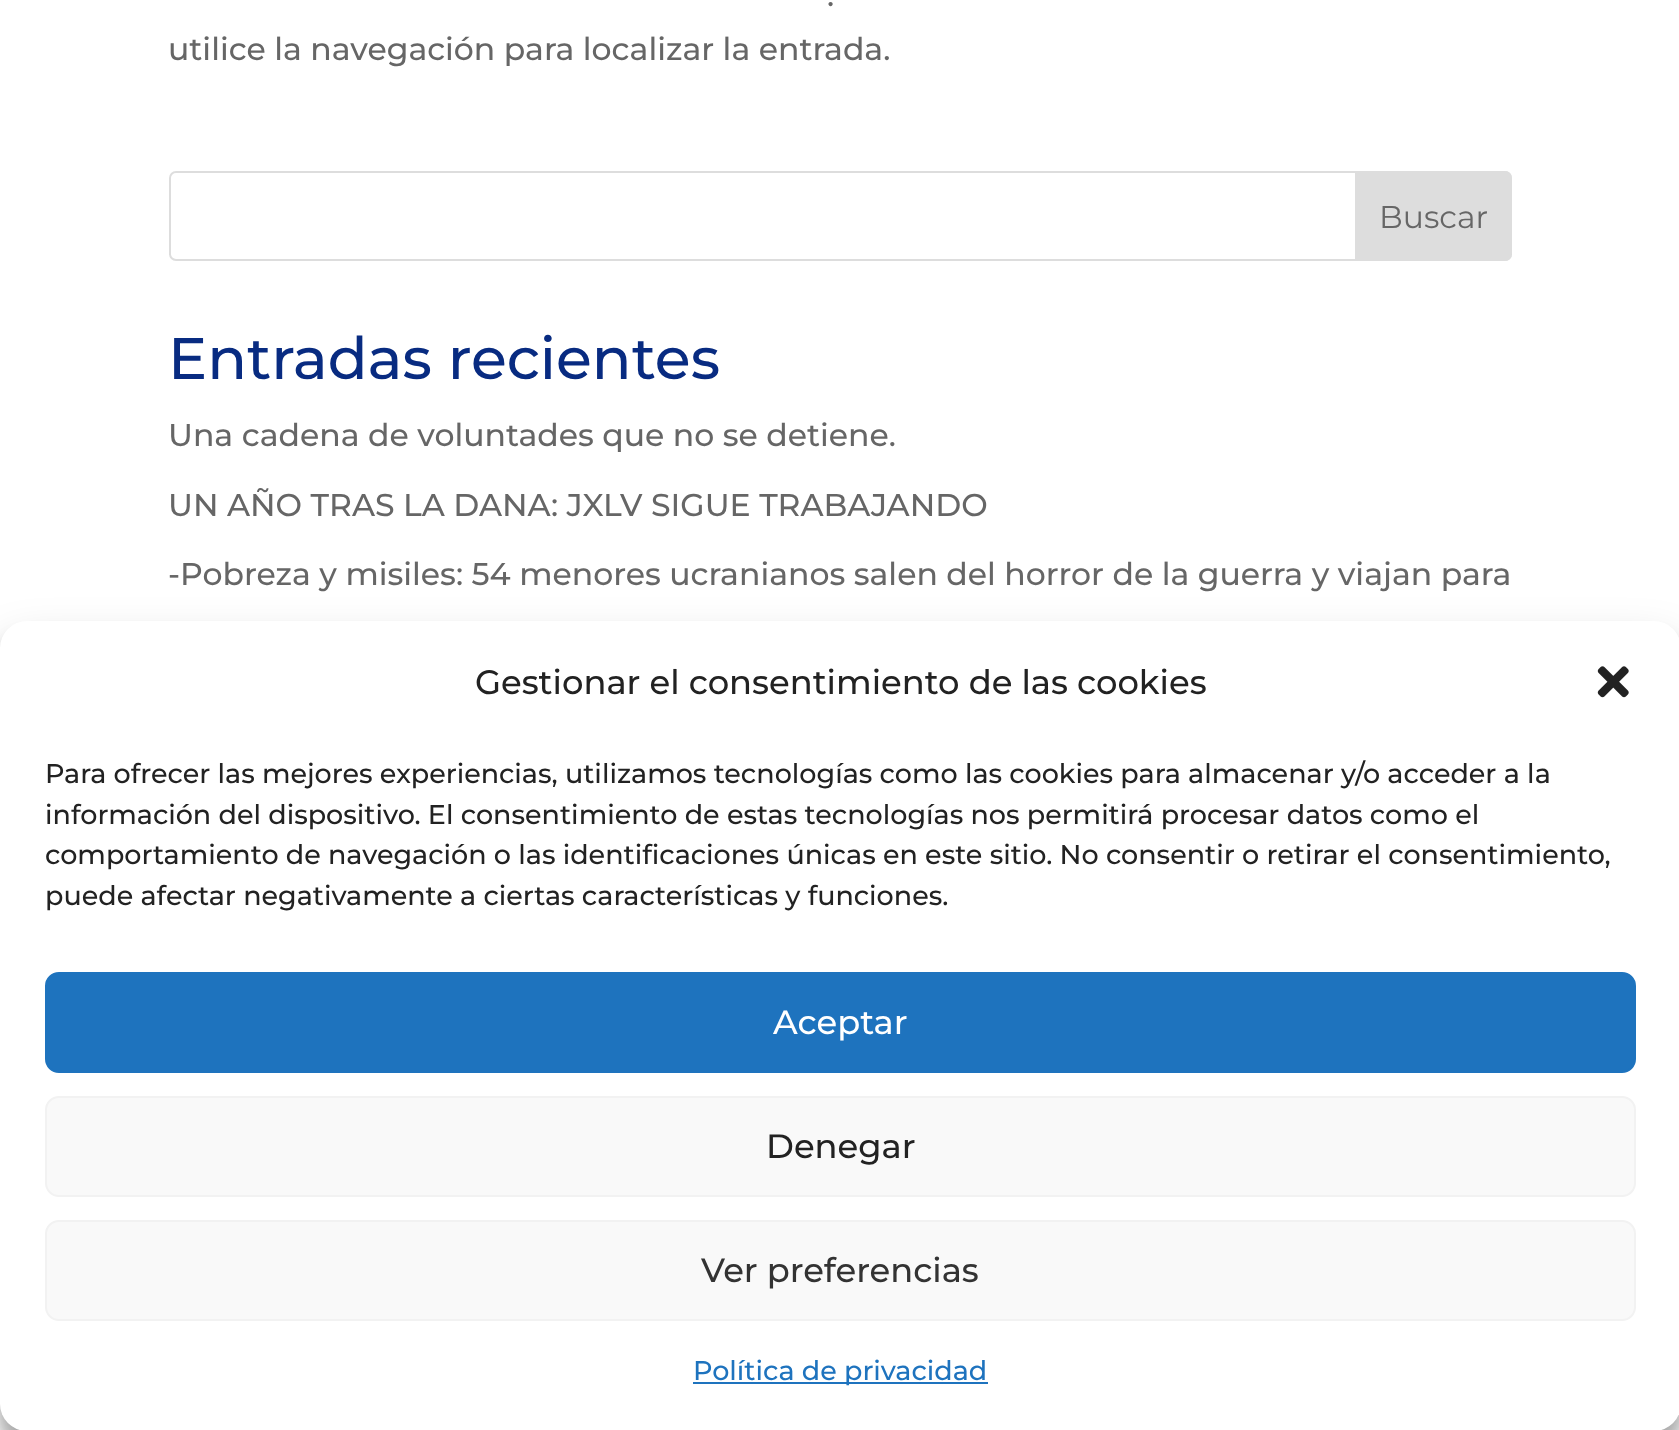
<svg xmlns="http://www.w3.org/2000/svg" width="1679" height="1430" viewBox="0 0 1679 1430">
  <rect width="100%" height="100%" fill="rgb(255,255,255)"/>
  <g font-family="Montserrat" font-size="31.5" font-weight="500" fill="rgb(102,102,102)">
    <text x="827" y="6">.</text>
    <text x="168" y="60">utilice la navegación para localizar la entrada.</text>
  </g>
  <rect x="170" y="172" width="1341" height="88" rx="6" fill="none" stroke="rgb(221,221,221)" stroke-width="2"/>
  <path d="M1356 172H1505C1508.5 172 1511 174.5 1511 178V254C1511 257.5 1508.5 260 1505 260H1356Z" fill="rgb(221,221,221)" stroke="rgb(221,221,221)" stroke-width="2"/>
  <text x="1379" y="228" font-family="Montserrat" font-size="31.5" fill="rgb(102,102,102)">Buscar</text>
  <text x="168" y="379" font-family="Montserrat" font-size="58.5" font-weight="500" fill="rgb(8,43,129)">Entradas recientes</text>
  <g font-family="Montserrat" font-size="31.5" font-weight="500" fill="rgb(102,102,102)">
    <text x="168" y="446">Una cadena de voluntades que no se detiene.</text>
    <text x="168" y="516">UN AÑO TRAS LA DANA: JXLV SIGUE TRABAJANDO</text>
    <text x="168" y="585">-Pobreza y misiles: 54 menores ucranianos salen del horror de la guerra y viajan para</text>
  </g>
  <rect x="0" y="635" width="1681" height="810" rx="27" fill="rgba(0,0,0,0.23)" filter="blur(7px)"/>
  <rect x="0" y="644" width="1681" height="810" rx="27" fill="rgba(0,0,0,0.19)" filter="blur(22.5px)"/>
  <rect x="0" y="621" width="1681" height="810" rx="27" fill="rgb(255,255,255)"/>
  <text x="475" y="694" font-family="Montserrat" font-size="33.75" font-weight="500" fill="rgb(34,34,34)">Gestionar el consentimiento de las cookies</text>
  <image x="1597" y="666" width="32" height="32" href="pic1.png"/>
  <g font-family="Montserrat" font-size="27" font-weight="500" fill="rgb(34,34,34)">
    <text>
      <tspan x="45" y="783">Para ofrecer las mejores experiencias, utilizamos tecnologías como las cookies para almacenar y/o acceder a la</tspan>
      <tspan x="45" y="824">información del dispositivo. El consentimiento de estas tecnologías nos permitirá procesar datos como el</tspan>
      <tspan x="45" y="864">comportamiento de navegación o las identificaciones únicas en este sitio. No consentir o retirar el consentimiento,</tspan>
      <tspan x="45" y="905">puede afectar negativamente a ciertas características y funciones.</tspan>
    </text>
  </g>
  <rect x="46" y="973" width="1589" height="99" rx="13" fill="rgb(30,115,190)" stroke="rgb(30,115,190)" stroke-width="2"/>
  <text x="773" y="1034" font-family="Montserrat" font-size="33.75" font-weight="500" fill="rgb(255,255,255)">Aceptar</text>
  <rect x="46" y="1097" width="1589" height="99" rx="13" fill="rgb(249,249,249)" stroke="rgb(242,242,242)" stroke-width="2"/>
  <text x="766" y="1158" font-family="Montserrat" font-size="33.75" font-weight="500" fill="rgb(34,34,34)">Denegar</text>
  <rect x="46" y="1221" width="1589" height="99" rx="13" fill="rgb(249,249,249)" stroke="rgb(242,242,242)" stroke-width="2"/>
  <text x="701" y="1282" font-family="Montserrat" font-size="33.75" font-weight="500" fill="rgb(51,51,51)">Ver preferencias</text>
  <rect x="693" y="1382" width="295" height="2" fill="rgb(30,115,190)"/>
  <text x="693" y="1380" font-family="Montserrat" font-size="27" font-weight="500" fill="rgb(30,115,190)">Política de privacidad</text>
</svg>
